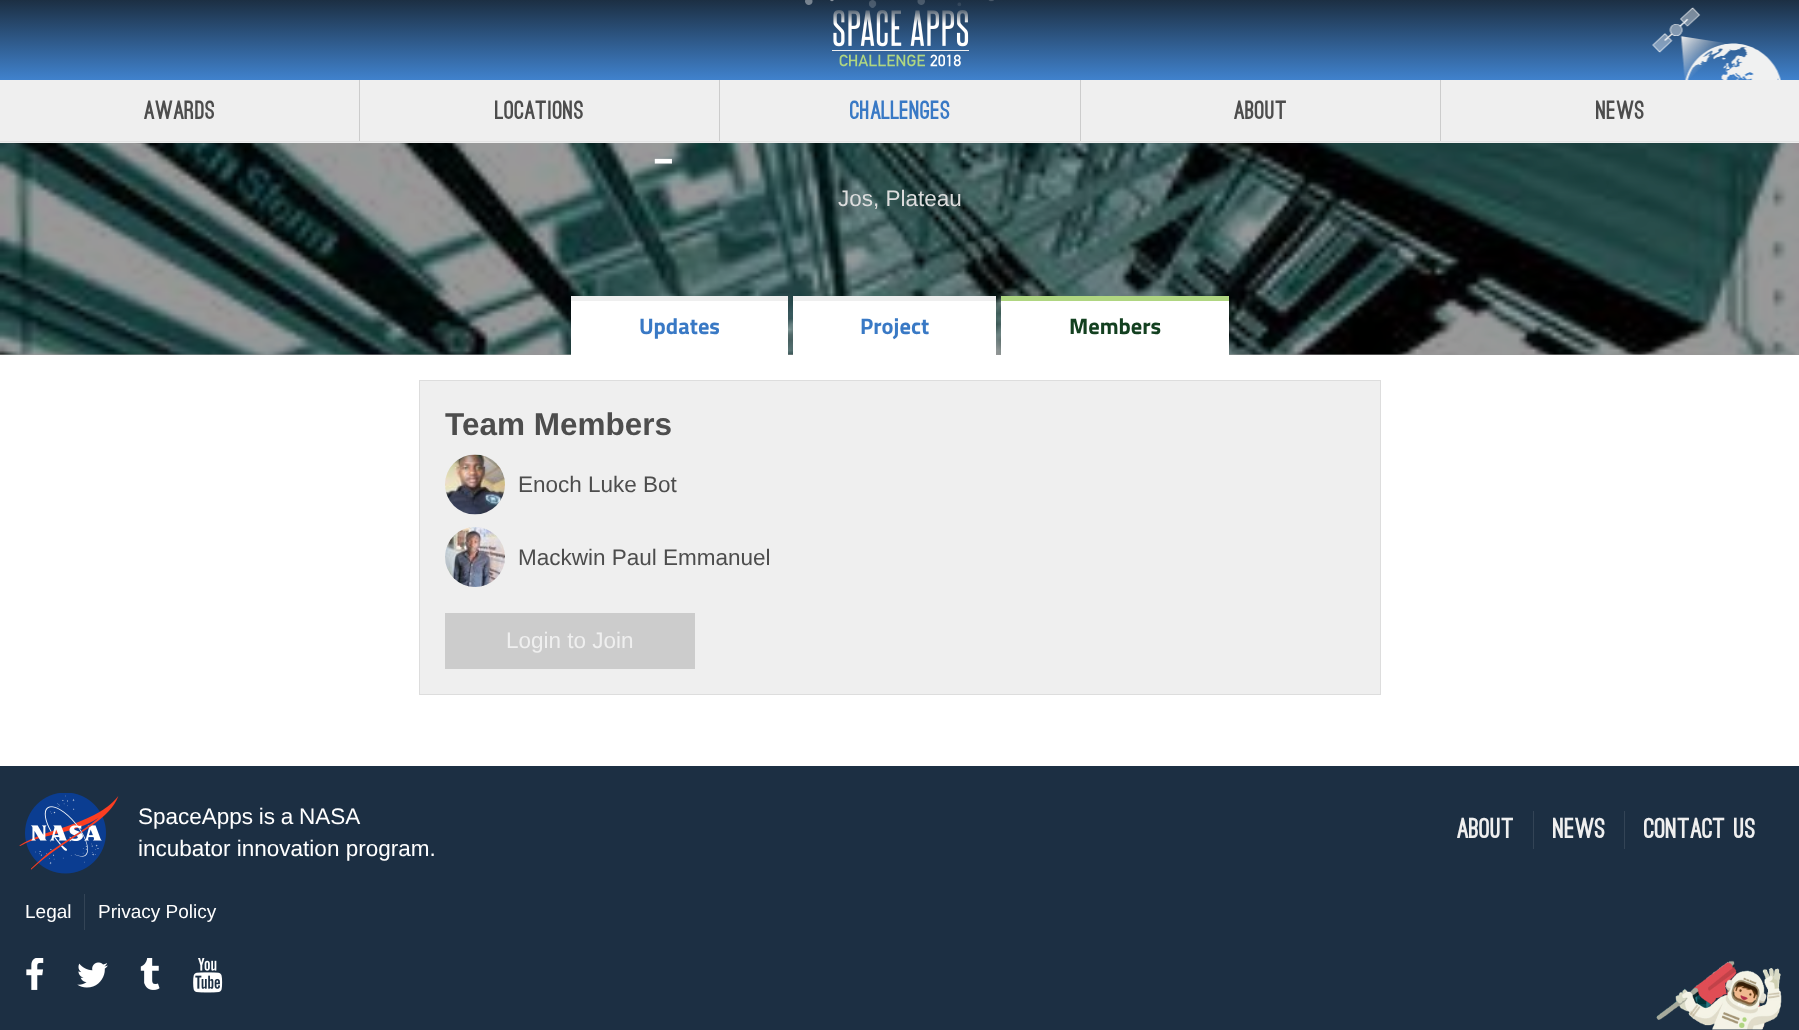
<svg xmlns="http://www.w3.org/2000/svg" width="1799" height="1030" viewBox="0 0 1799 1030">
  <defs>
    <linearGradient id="g1" gradientUnits="userSpaceOnUse" x1="900" y1="80" x2="900" y2="0"><stop offset="0" stop-color="rgb(64,130,205)"/><stop offset="1" stop-color="rgb(28,47,67)"/></linearGradient>
  </defs>
  <rect width="100%" height="100%" fill="rgb(255,255,255)"/>
  <rect x="0" y="354" width="1799" height="1" fill="rgb(153,153,153)"/>
  <rect x="0" y="80" width="1799" height="63" fill="rgb(239,239,239)"/>
  <rect x="0" y="141" width="1799" height="1" fill="rgb(227,227,227)"/>
  <rect x="0" y="0" width="1799" height="80" fill="url(#g1)"/>
  <image x="805" y="0" width="189" height="8" href="pic1.png"/>
  <image x="832" y="10" width="137" height="57" href="pic2.png"/>
  <image x="1652" y="7" width="129" height="73" href="pic3.png"/>
  <text x="144" y="119" font-family="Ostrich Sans" font-size="25" font-weight="900" letter-spacing="0.25" fill="rgb(77,77,77)">Awards</text>
  <rect x="359" y="80" width="1" height="61" fill="rgb(204,204,204)"/>
  <text x="495" y="119" font-family="Ostrich Sans" font-size="25" font-weight="900" letter-spacing="0.25" fill="rgb(77,77,77)">Locations</text>
  <rect x="719" y="80" width="1" height="61" fill="rgb(204,204,204)"/>
  <text x="850" y="119" font-family="Ostrich Sans" font-size="25" font-weight="900" letter-spacing="0.25" fill="rgb(57,121,197)">Challenges</text>
  <rect x="1080" y="80" width="1" height="61" fill="rgb(204,204,204)"/>
  <text x="1234" y="119" font-family="Ostrich Sans" font-size="25" font-weight="900" letter-spacing="0.25" fill="rgb(77,77,77)">About</text>
  <rect x="1440" y="80" width="1" height="61" fill="rgb(204,204,204)"/>
  <text x="1596" y="119" font-family="Ostrich Sans" font-size="25" font-weight="900" letter-spacing="0.25" fill="rgb(77,77,77)">News</text>
  <image x="0" y="143" width="1799" height="212" href="pic4.png"/>
  <text x="651" y="156" font-family="Titillium Web" font-size="40" font-weight="bold" fill="rgb(255,255,255)">_</text>
  <text x="838" y="206" font-family="Liberation Sans" font-size="22.5" fill="rgb(221,221,221)">Jos, Plateau</text>
  <rect x="571" y="301" width="217" height="54" fill="rgb(255,255,255)"/>
  <rect x="571" y="296" width="217" height="5" fill="rgb(239,239,239)"/>
  <text x="639" y="334" font-family="Titillium Web" font-size="22.5" font-weight="bold" fill="rgb(57,121,197)">Updates</text>
  <rect x="793" y="301" width="203" height="54" fill="rgb(255,255,255)"/>
  <rect x="793" y="296" width="203" height="5" fill="rgb(239,239,239)"/>
  <text x="860" y="334" font-family="Titillium Web" font-size="22.5" font-weight="bold" fill="rgb(57,121,197)">Project</text>
  <rect x="1001" y="301" width="228" height="54" fill="rgb(255,255,255)"/>
  <rect x="1001" y="296" width="228" height="5" fill="rgb(176,214,129)"/>
  <text x="1069" y="334" font-family="Titillium Web" font-size="22.5" font-weight="bold" fill="rgb(19,64,32)">Members</text>
  <rect x="419.5" y="380.5" width="961" height="314" fill="rgb(239,239,239)" stroke="rgb(221,221,221)"/>
  <text x="445" y="435" font-family="Liberation Sans" font-size="31.5" font-weight="bold" fill="rgb(77,77,77)">Team Members</text>
  <image x="445" y="454" width="60" height="61" href="pic5.png"/>
  <text x="518" y="492" font-family="Liberation Sans" font-size="22.5" fill="rgb(77,77,77)">Enoch Luke Bot</text>
  <image x="445" y="527" width="60" height="60" href="pic6.png"/>
  <text x="518" y="565" font-family="Liberation Sans" font-size="22.5" fill="rgb(77,77,77)">Mackwin Paul Emmanuel</text>
  <rect x="445" y="613" width="250" height="56" fill="rgb(204,204,204)"/>
  <text x="506" y="648" font-family="Liberation Sans" font-size="22.5" fill="rgb(239,239,239)">Login to Join</text>
  <rect x="0" y="766" width="1799" height="264" fill="rgb(28,47,67)"/>
  <image x="19" y="793" width="100" height="81" href="pic7.png"/>
  <g font-family="Liberation Sans" font-size="22.5" fill="rgb(255,255,255)">
    <text>
      <tspan x="138" y="824" word-spacing="-0.5">SpaceApps is a NASA</tspan>
      <tspan x="138" y="856">incubator innovation program.</tspan>
    </text>
  </g>
  <text x="1457" y="838" font-family="Ostrich Sans" font-size="27.5" font-weight="900" fill="rgb(239,239,239)">About</text>
  <rect x="1533" y="811" width="1" height="38" fill="rgb(51,68,86)"/>
  <text x="1553" y="838" font-family="Ostrich Sans" font-size="27.5" font-weight="900" fill="rgb(239,239,239)">News</text>
  <rect x="1624" y="811" width="1" height="38" fill="rgb(51,68,86)"/>
  <text x="1644" y="838" font-family="Ostrich Sans" font-size="27.5" font-weight="900" fill="rgb(239,239,239)">Contact Us</text>
  <text x="25" y="918" font-family="Liberation Sans" font-size="19" fill="rgb(255,255,255)">Legal</text>
  <rect x="84" y="894" width="1" height="36" fill="rgb(51,68,86)"/>
  <text x="98" y="918" font-family="Liberation Sans" font-size="19" fill="rgb(255,255,255)">Privacy Policy</text>
  <image x="26" y="958" width="18" height="32" href="pic8.png"/>
  <image x="77" y="962" width="31" height="26" href="pic9.png"/>
  <image x="140" y="958" width="20" height="32" href="pic10.png"/>
  <image x="193" y="958" width="30" height="35" href="pic11.png"/>
  <image x="1656" y="960" width="126" height="70" href="pic12.png"/>
</svg>
